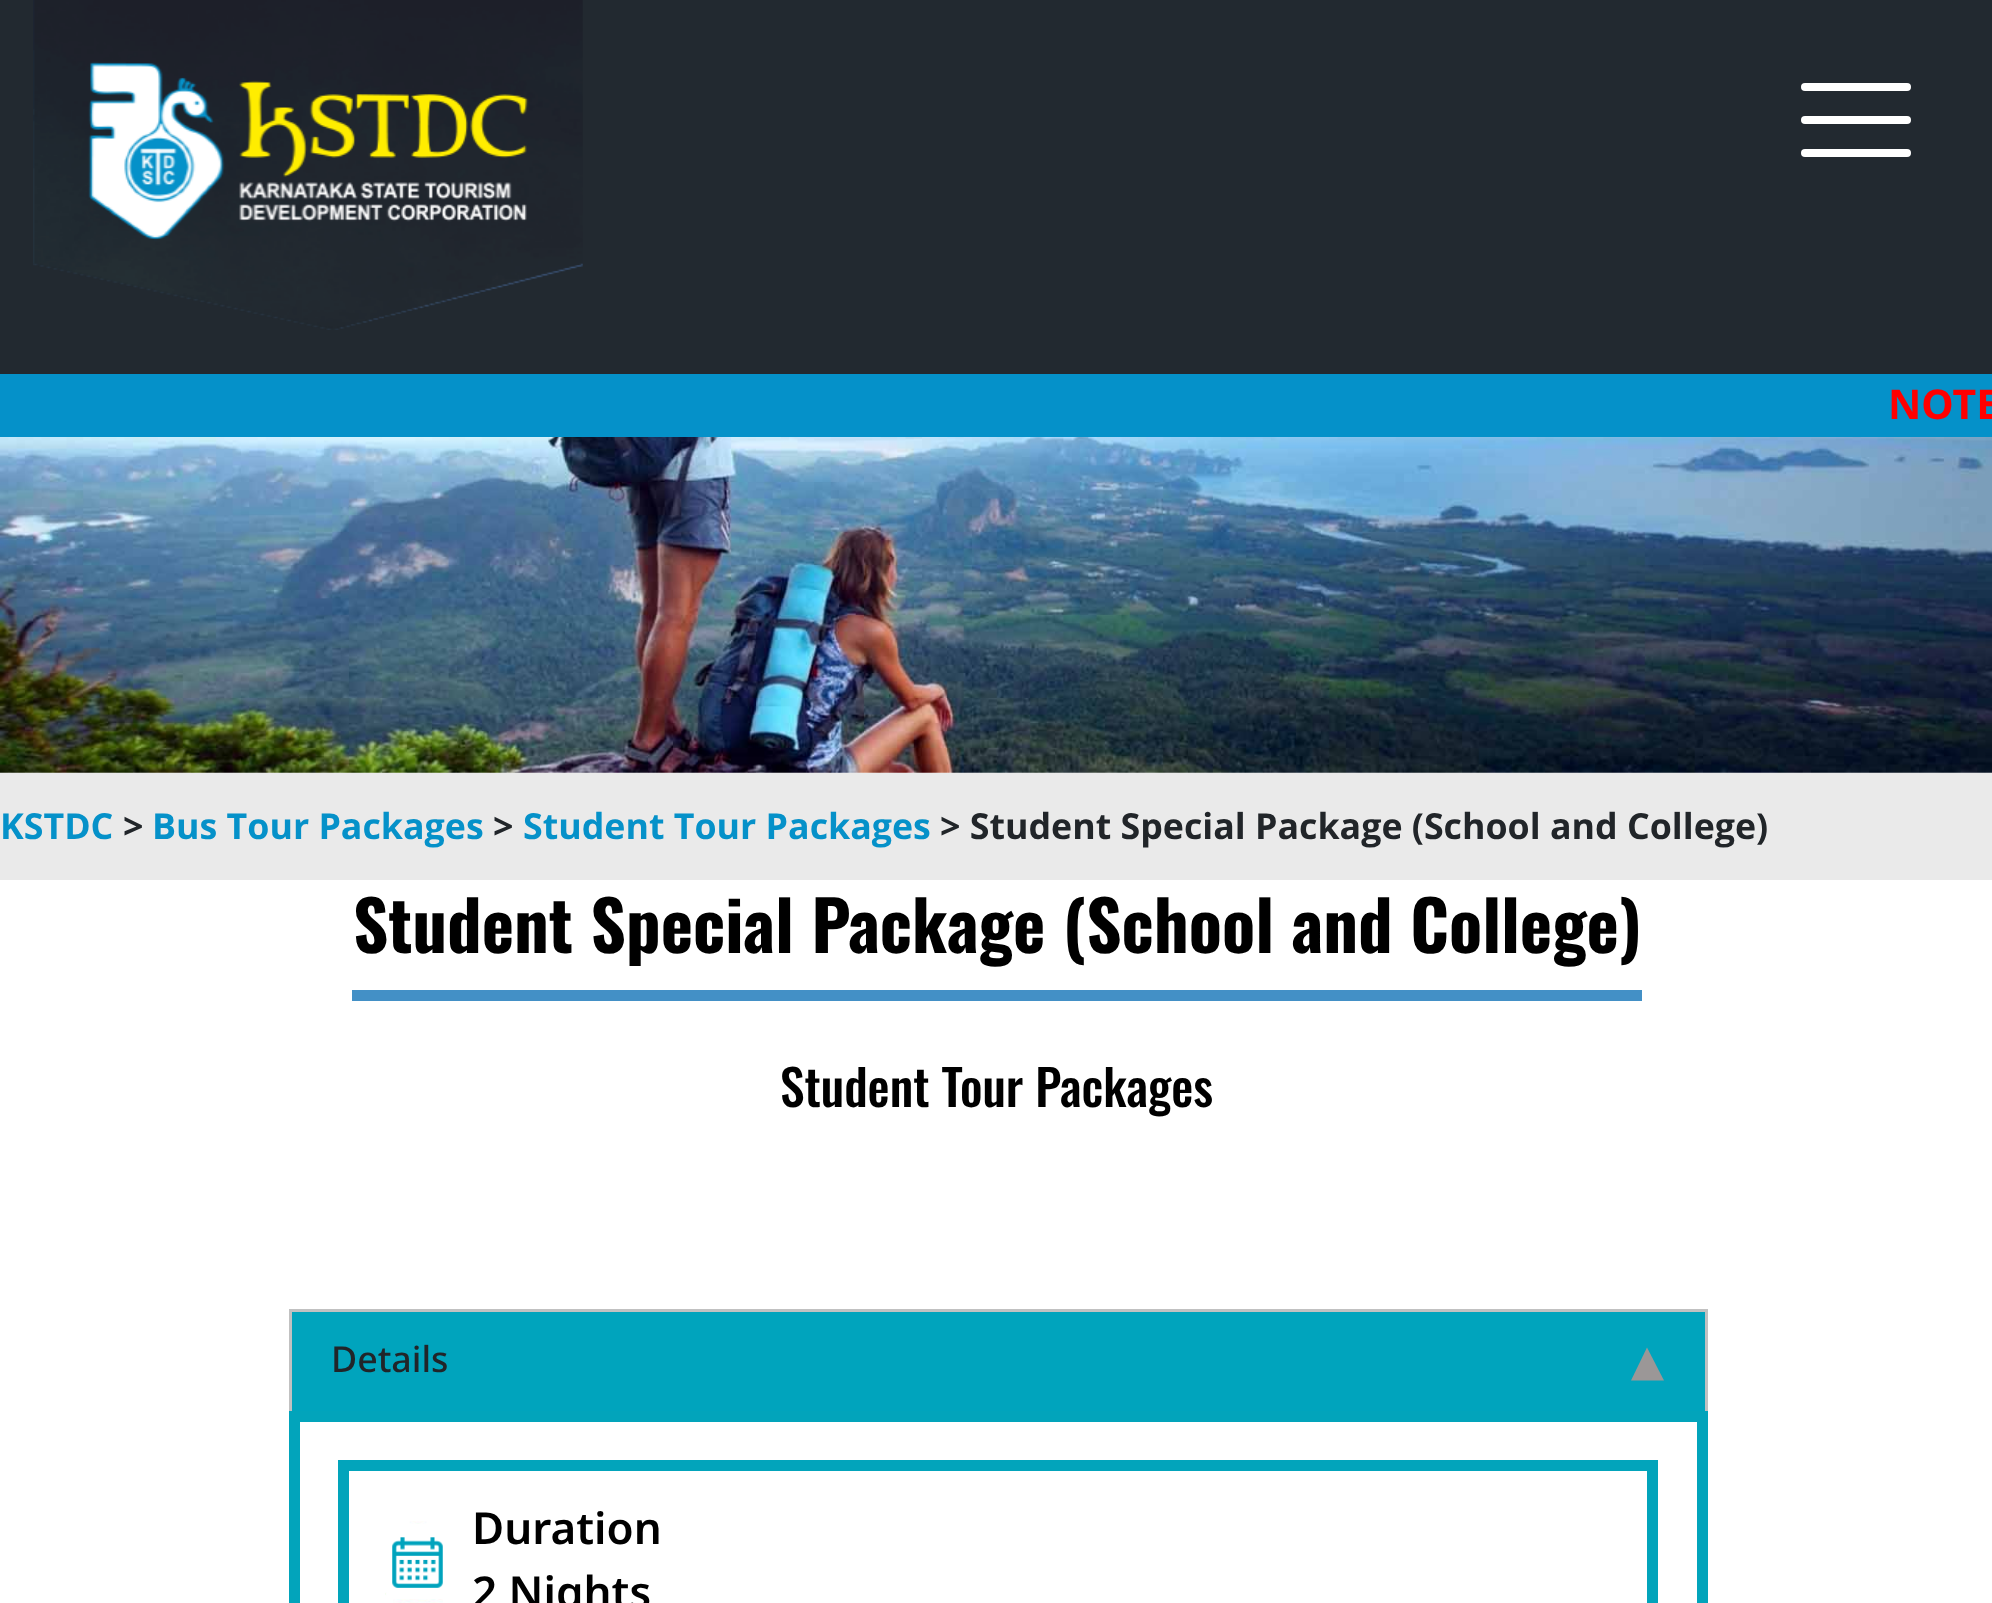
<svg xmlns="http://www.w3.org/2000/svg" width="1992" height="1603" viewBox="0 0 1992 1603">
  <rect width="100%" height="100%" fill="rgb(255,255,255)"/>
  <rect x="0" y="0" width="1992" height="374" fill="rgb(34,41,48)"/>
  <image x="33" y="0" width="550" height="330" href="pic1.png"/>
  <rect x="1801" y="83" width="110" height="8" rx="4" fill="rgb(255,255,255)"/>
  <rect x="1801" y="116" width="110" height="8" rx="4" fill="rgb(255,255,255)"/>
  <rect x="1801" y="149" width="110" height="8" rx="4" fill="rgb(255,255,255)"/>
  <rect x="0" y="374" width="1992" height="63" fill="rgb(5,145,201)"/>
  <text x="1888" y="419" font-family="Noto Sans" font-size="41" font-weight="bold" fill="rgb(255,0,0)">NOTE</text>
  <image x="0" y="437" width="1992" height="336" href="pic2.png"/>
  <rect x="0" y="773" width="1992" height="107" fill="rgb(234,234,234)"/>
  <text x="0" y="839" font-family="Open Sans" font-size="35.75" font-weight="bold" fill="rgb(5,145,201)">KSTDC</text>
  <text x="123" y="839" font-family="Open Sans" font-size="35.75" font-weight="bold" fill="rgb(33,37,41)">&gt;</text>
  <text x="152" y="839" font-family="Open Sans" font-size="35.75" font-weight="bold" fill="rgb(5,145,201)">Bus Tour Packages</text>
  <text x="493" y="839" font-family="Open Sans" font-size="35.75" font-weight="bold" fill="rgb(33,37,41)">&gt;</text>
  <text x="523" y="839" font-family="Open Sans" font-size="35.75" font-weight="bold" fill="rgb(5,145,201)">Student Tour Packages</text>
  <text x="940" y="839" font-family="Open Sans" font-size="35.75" font-weight="bold" fill="rgb(33,37,41)">&gt; Student Special Package (School and College)</text>
  <rect x="352" y="990" width="1290" height="11" fill="rgb(67,144,198)"/>
  <text x="353" y="953" font-family="Oswald" font-size="68.75" font-weight="bold" fill="rgb(0,0,0)">Student Special Package (School and College)</text>
  <text x="780" y="1107" font-family="Oswald" font-size="49.5" font-weight="500" fill="rgb(0,0,0)">Student Tour Packages</text>
  <rect x="292" y="1312" width="1413" height="99" fill="rgb(0,164,189)"/>
  <rect x="289" y="1309" width="1419" height="3" fill="rgb(193,193,193)"/>
  <rect x="1705" y="1309" width="3" height="102" fill="rgb(193,193,193)"/>
  <rect x="289" y="1309" width="3" height="102" fill="rgb(193,193,193)"/>
  <text x="331" y="1372" font-family="Noto Sans" font-size="35.75" font-weight="500" fill="rgb(33,37,41)">Details</text>
  <path d="M1664 1380.5H1631L1647 1347.5Z" fill="rgb(155,151,151)"/>
  <rect x="294.5" y="1416.5" width="1408" height="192" fill="none" stroke="rgb(2,164,187)" stroke-width="11"/>
  <rect x="343.5" y="1465.5" width="1309" height="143" fill="none" stroke="rgb(2,164,187)" stroke-width="11"/>
  <image x="385" y="1521" width="58" height="82" href="pic3.png"/>
  <g font-family="Noto Sans" font-size="44" font-weight="600" fill="rgb(0,0,0)">
    <text>
      <tspan x="472" y="1544">Duration</tspan>
      <tspan x="472" y="1608">2 Nights</tspan>
    </text>
  </g>
</svg>
